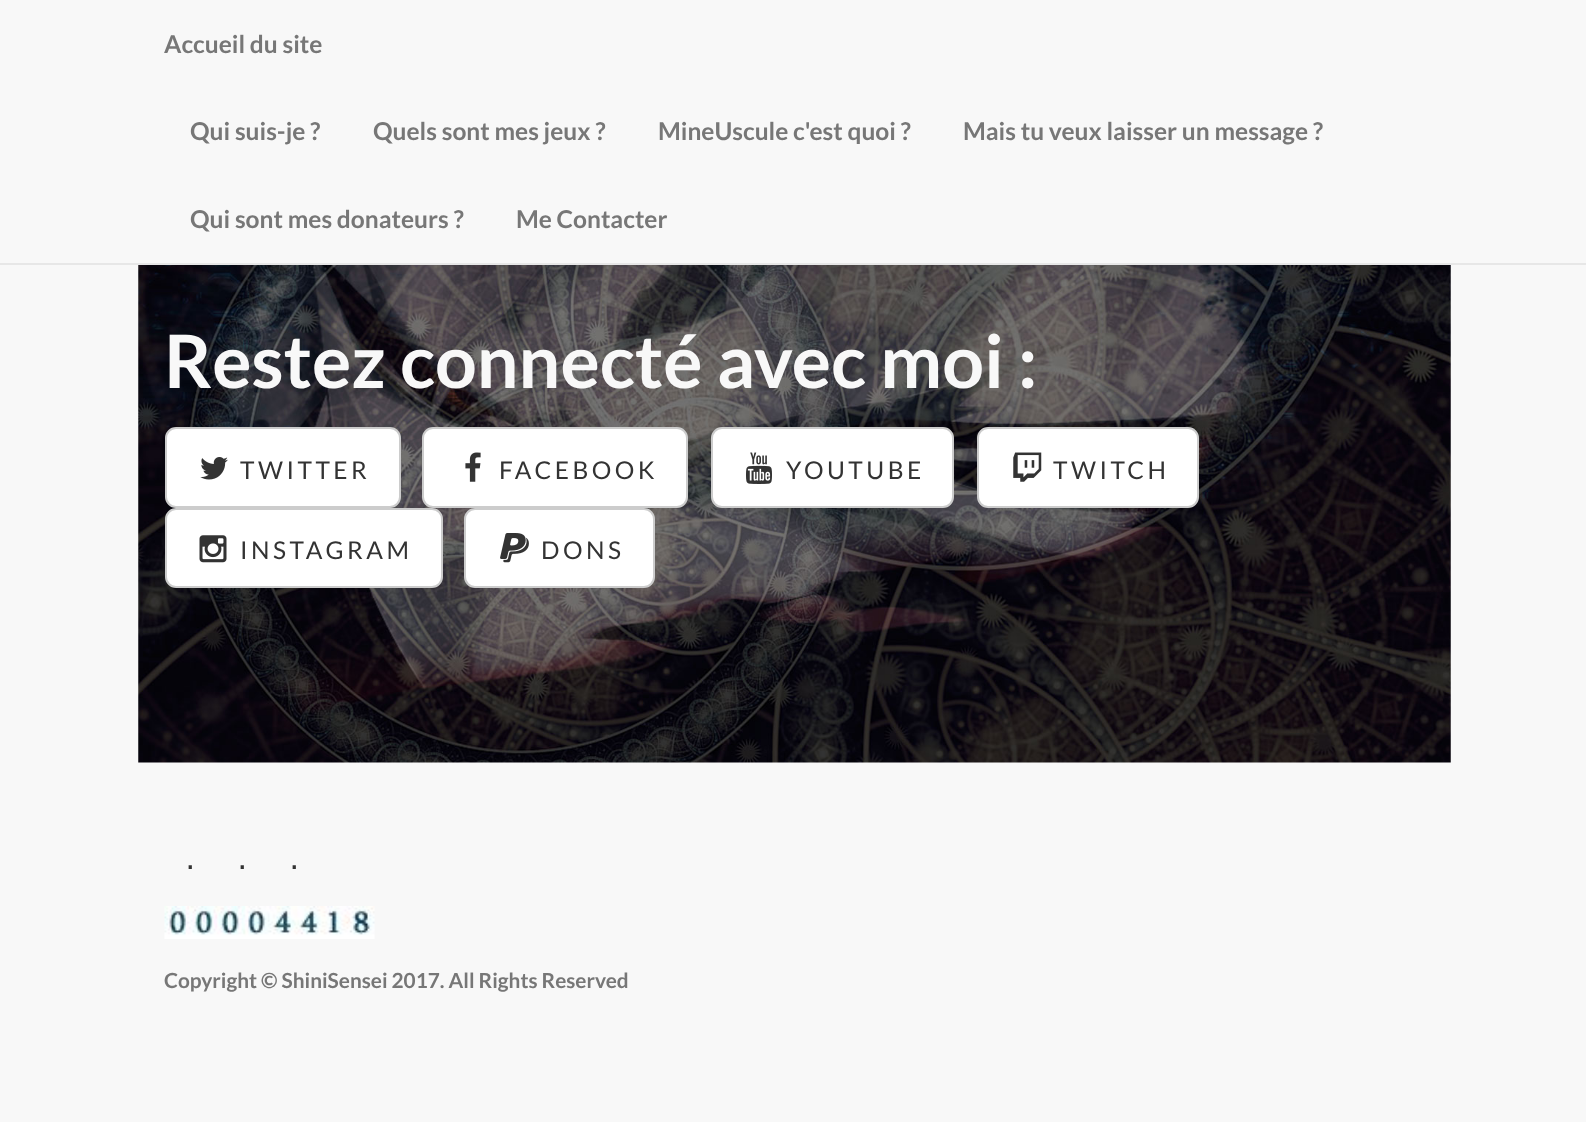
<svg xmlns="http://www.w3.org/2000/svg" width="1586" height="1122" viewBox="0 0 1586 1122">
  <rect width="100%" height="100%" fill="rgb(248,248,248)"/>
  <rect x="0" y="263" width="1586" height="2" fill="rgb(231,231,231)"/>
  <g font-family="Lato" font-size="24.5" font-weight="bold" fill="rgb(119,119,119)">
    <text x="164" y="53">Accueil du site</text>
    <text x="190" y="140">Qui suis-je ?</text>
    <text x="373" y="140">Quels sont mes jeux ?</text>
    <text x="658" y="140">MineUscule c'est quoi ?</text>
    <text x="963" y="140">Mais tu veux laisser un message ?</text>
    <text x="190" y="228">Qui sont mes donateurs ?</text>
    <text x="516" y="228">Me Contacter</text>
  </g>
  <image x="138" y="265" width="1313" height="498" href="pic1.png"/>
  <text x="164" y="388" font-family="Lato" font-size="73.5" font-weight="bold" fill="rgb(248,248,248)">Restez connecté avec moi :</text>
  <rect x="166" y="428" width="234" height="79" rx="10" fill="rgb(255,255,255)" stroke="rgb(204,204,204)" stroke-width="2"/>
  <image x="200" y="457" width="28" height="23" href="pic2.png"/>
  <text x="240" y="479" font-family="Lato" font-size="24.5" letter-spacing="3.5" fill="rgb(51,51,51)">TWITTER</text>
  <rect x="423" y="428" width="264" height="79" rx="10" fill="rgb(255,255,255)" stroke="rgb(204,204,204)" stroke-width="2"/>
  <image x="465" y="452" width="16" height="30" href="pic3.png"/>
  <text x="499" y="479" font-family="Lato" font-size="24.5" letter-spacing="3.5" fill="rgb(51,51,51)">FACEBOOK</text>
  <rect x="712" y="428" width="241" height="79" rx="10" fill="rgb(255,255,255)" stroke="rgb(204,204,204)" stroke-width="2"/>
  <image x="746" y="452" width="26" height="32" href="pic4.png"/>
  <text x="786" y="479" font-family="Lato" font-size="24.5" letter-spacing="3.5" fill="rgb(51,51,51)">YOUTUBE</text>
  <rect x="978" y="428" width="220" height="79" rx="10" fill="rgb(255,255,255)" stroke="rgb(204,204,204)" stroke-width="2"/>
  <image x="1013" y="452" width="29" height="30" href="pic5.png"/>
  <text x="1053" y="479" font-family="Lato" font-size="24.5" letter-spacing="3.5" fill="rgb(51,51,51)">TWITCH</text>
  <rect x="166" y="509" width="276" height="78" rx="10" fill="rgb(255,255,255)" stroke="rgb(204,204,204)" stroke-width="2"/>
  <image x="199" y="535" width="28" height="28" href="pic6.png"/>
  <text x="240" y="559" font-family="Lato" font-size="24.5" letter-spacing="3.5" fill="rgb(51,51,51)">INSTAGRAM</text>
  <rect x="465" y="509" width="189" height="78" rx="10" fill="rgb(255,255,255)" stroke="rgb(204,204,204)" stroke-width="2"/>
  <image x="500" y="533" width="29" height="30" href="pic7.png"/>
  <text x="541" y="559" font-family="Lato" font-size="24.5" letter-spacing="3.5" fill="rgb(51,51,51)">DONS</text>
  <g font-family="DejaVu Sans" font-size="24.5" font-weight="bold" fill="rgb(51,51,51)">
    <text x="186" y="876">⋅</text>
    <text x="238" y="876">⋅</text>
    <text x="290" y="876">⋅</text>
  </g>
  <image x="164" y="906" width="211" height="33" href="pic8.png"/>
  <text x="164" y="988" font-family="Lato" font-size="20.8" font-weight="bold" fill="rgb(119,119,119)">Copyright © ShiniSensei 2017. All Rights Reserved</text>
</svg>
